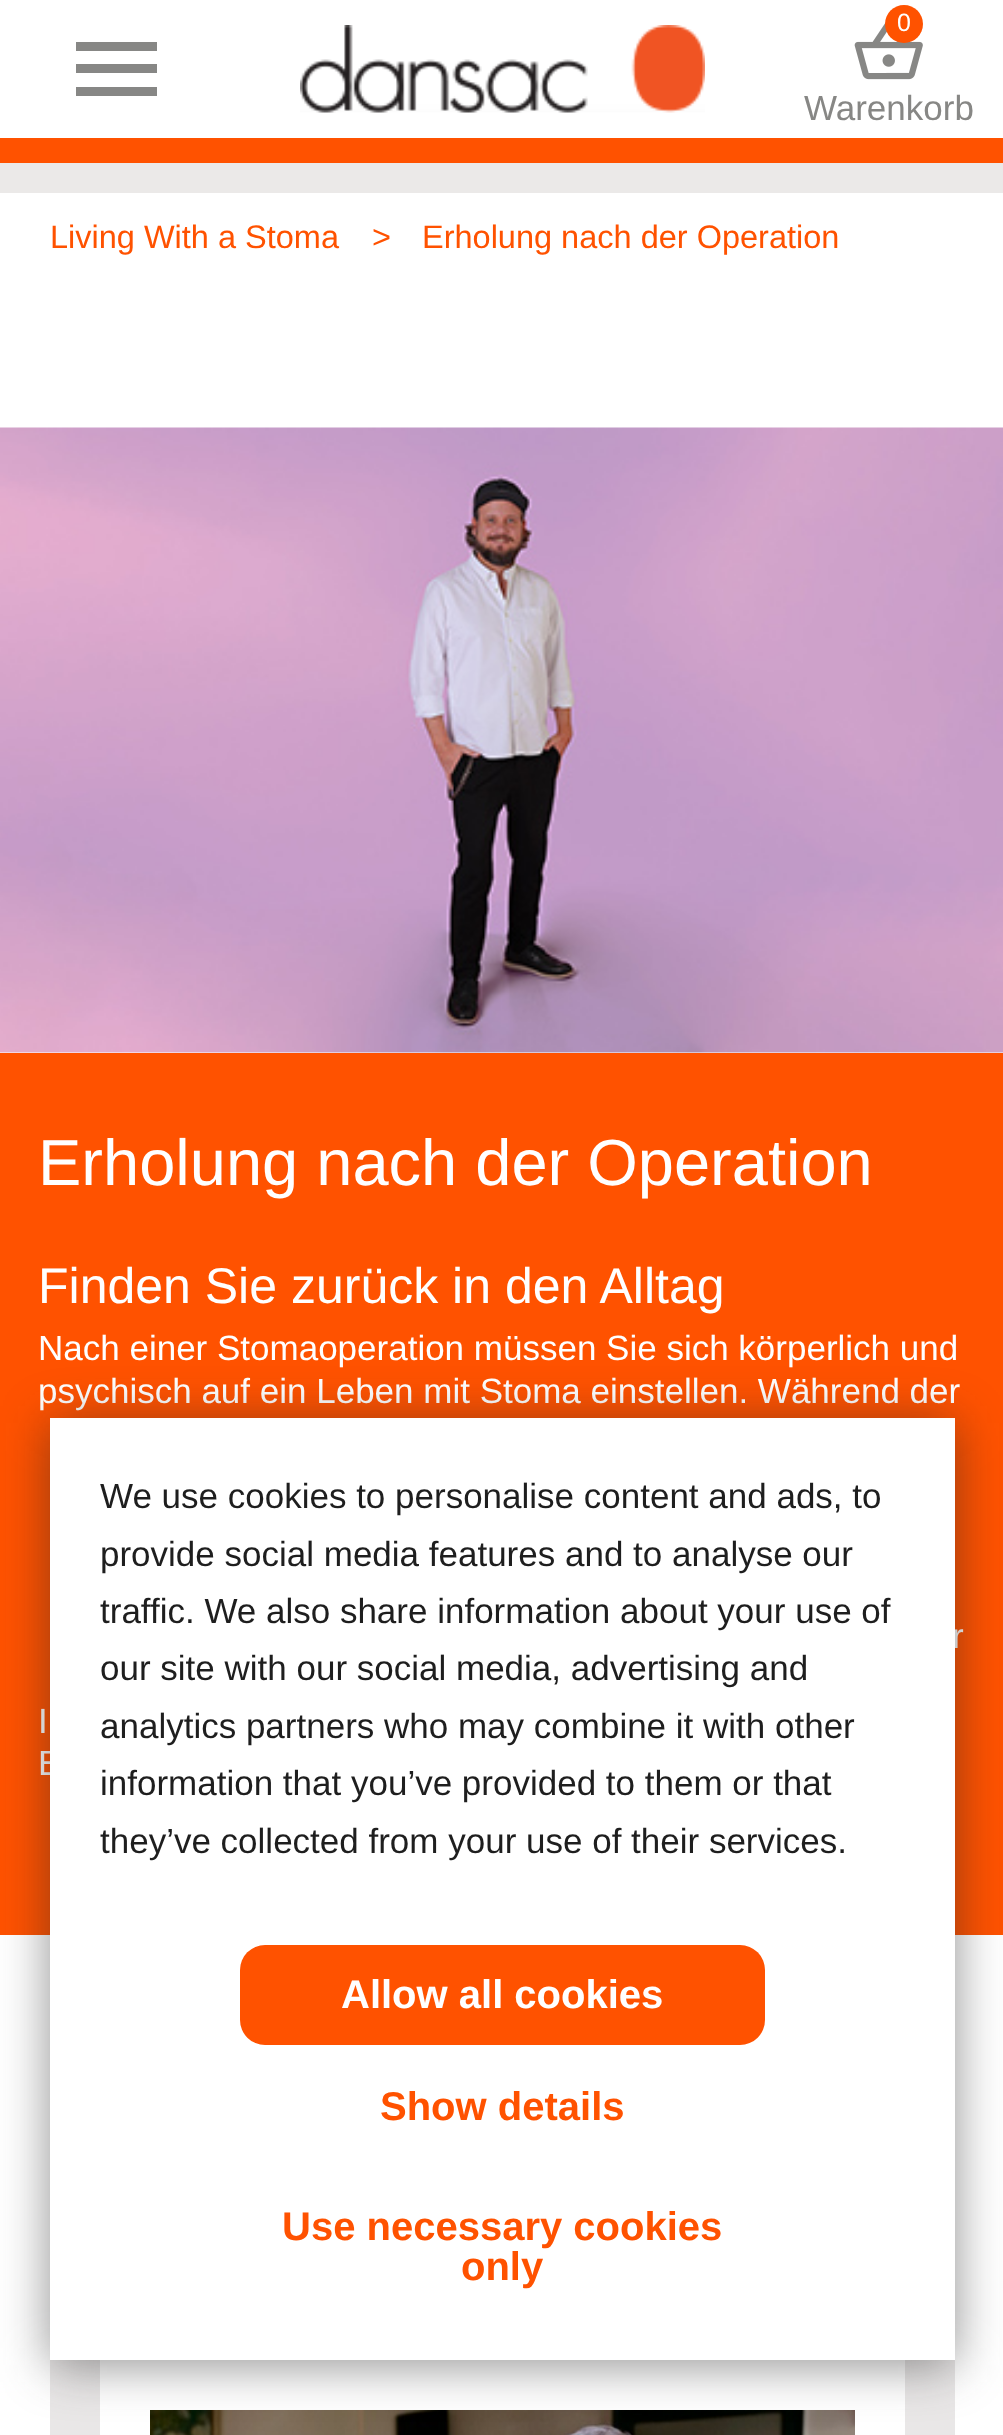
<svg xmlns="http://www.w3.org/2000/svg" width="1003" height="2435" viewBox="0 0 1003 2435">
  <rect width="100%" height="100%" fill="rgb(255,255,255)"/>
  <rect x="0" y="138" width="1003" height="25" fill="rgb(255,82,0)"/>
  <path d="M76 96H157V87H76ZM76 73H157V64H76ZM76 42V51H157V42Z" fill="rgb(135,135,133)"/>
  <image x="300" y="25" width="405" height="88" href="pic1.png"/>
  <image x="854" y="22" width="69" height="58" href="pic2.png"/>
  <circle cx="904" cy="24" r="19" fill="rgb(255,82,0)"/>
  <text x="897" y="31" font-family="Liberation Sans" font-size="25" fill="rgb(255,255,255)">0</text>
  <text x="804" y="120" font-family="Liberation Sans" font-size="35" fill="rgb(135,135,133)">Warenkorb</text>
  <g font-family="Liberation Sans" font-size="32.5" fill="rgb(255,82,0)">
    <text x="50" y="248">Living With a Stoma</text>
    <text x="372" y="248">&gt;</text>
    <text x="422" y="248">Erholung nach der Operation</text>
  </g>
  <rect x="0" y="163" width="1003" height="30" fill="rgb(235,233,232)"/>
  <image x="0" y="427" width="1003" height="626" href="pic3.png"/>
  <rect x="0" y="1053" width="1003" height="882" fill="rgb(255,82,0)"/>
  <text x="38" y="1185" font-family="Liberation Sans" font-size="65" fill="rgb(255,255,255)">Erholung nach der Operation</text>
  <text x="38" y="1303" font-family="Liberation Sans" font-size="50" fill="rgb(255,255,255)">Finden Sie zurück in den Alltag</text>
  <g font-family="Liberation Sans" font-size="35" fill="rgb(255,255,255)">
    <text>
      <tspan x="38" y="1360">Nach einer Stomaoperation müssen Sie sich körperlich und</tspan>
      <tspan x="38" y="1403">psychisch auf ein Leben mit Stoma einstellen. Während der</tspan>
    </text>
    <text x="952" y="1648">r</text>
    <text>
      <tspan x="38" y="1733">I</tspan>
      <tspan x="38" y="1775">E</tspan>
    </text>
  </g>
  <rect x="50" y="2360" width="905" height="75" fill="rgb(233,231,231)"/>
  <rect x="100" y="2360" width="805" height="75" fill="rgb(255,255,255)"/>
  <image x="150" y="2410" width="705" height="25" href="pic4.png"/>
  <rect x="50" y="1423" width="905" height="942" fill="rgba(33,33,33,0.5)" filter="blur(25px)"/>
  <rect x="50" y="1418" width="905" height="942" fill="rgb(255,255,255)"/>
  <g font-family="Liberation Sans" font-size="35" fill="rgb(30,30,30)">
    <text>
      <tspan x="100" y="1508">We use cookies to personalise content and ads, to</tspan>
      <tspan x="100" y="1566">provide social media features and to analyse our</tspan>
      <tspan x="100" y="1623">traffic. We also share information about your use of</tspan>
      <tspan x="100" y="1680">our site with our social media, advertising and</tspan>
      <tspan x="100" y="1738">analytics partners who may combine it with other</tspan>
      <tspan x="100" y="1795">information that you’ve provided to them or that</tspan>
      <tspan x="100" y="1853">they’ve collected from your use of their services.</tspan>
    </text>
  </g>
  <rect x="240" y="1945" width="525" height="100" rx="25" fill="rgb(255,82,0)"/>
  <text x="341" y="2008" font-family="Liberation Sans" font-size="40" font-weight="bold" fill="rgb(255,255,255)">Allow all cookies</text>
  <g font-family="Liberation Sans" font-size="40" font-weight="bold" fill="rgb(255,82,0)">
    <text x="380" y="2120">Show details</text>
    <text x="282" y="2240">Use necessary cookies</text>
    <text x="461" y="2280">only</text>
  </g>
</svg>
